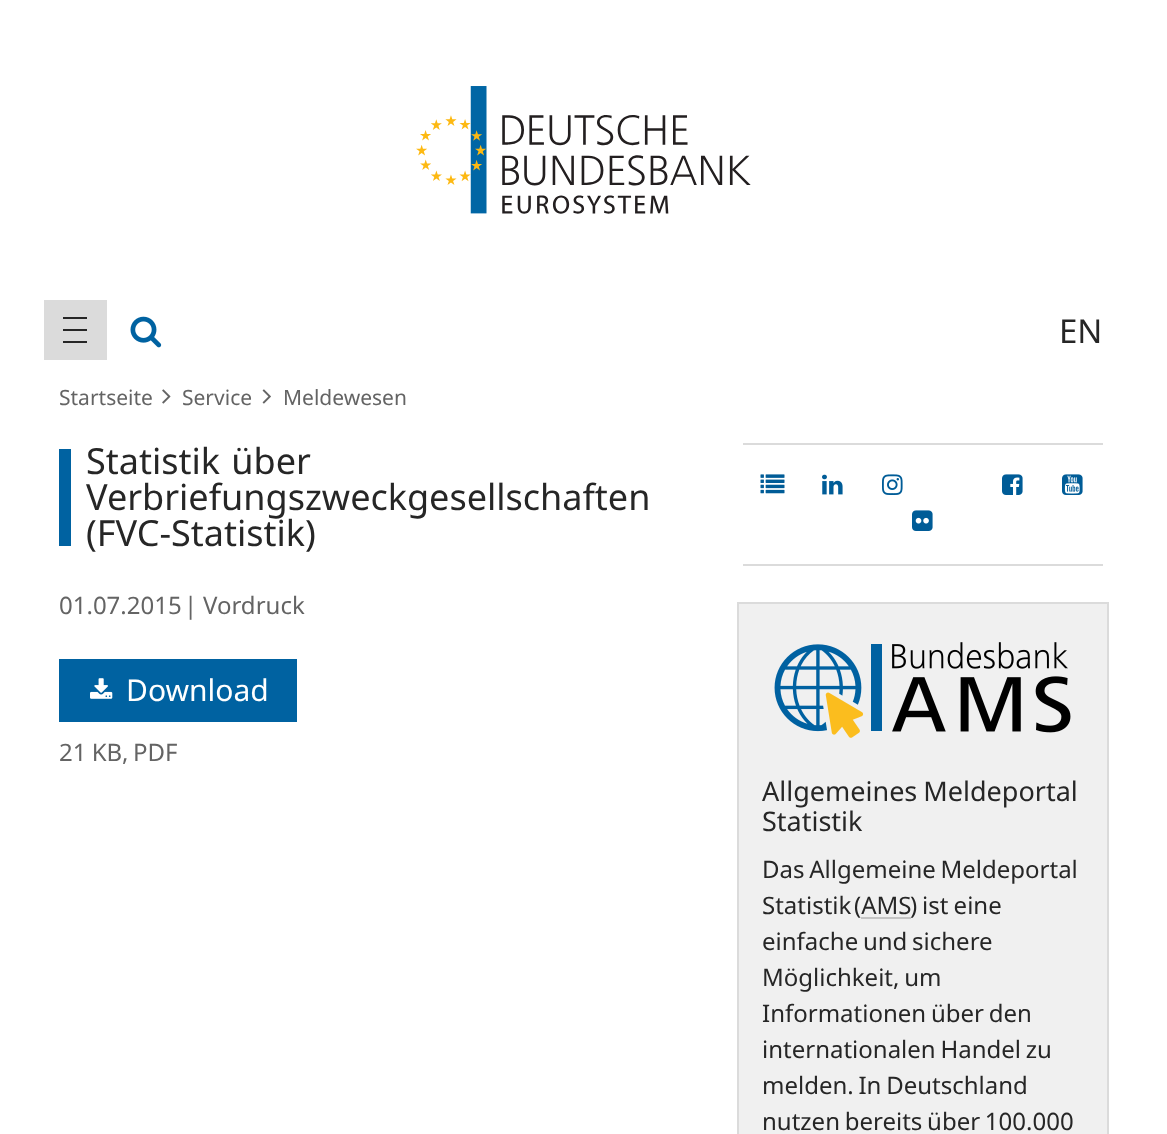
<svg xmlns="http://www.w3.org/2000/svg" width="1167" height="1134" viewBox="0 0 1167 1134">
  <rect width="100%" height="100%" fill="rgb(255,255,255)"/>
  <image x="416" y="86" width="335" height="128" href="pic1.png"/>
  <rect x="44" y="300" width="63" height="60" fill="rgb(219,219,219)"/>
  <rect x="63" y="317" width="24" height="2" fill="rgb(38,38,38)"/>
  <rect x="63" y="329" width="24" height="2" fill="rgb(38,38,38)"/>
  <rect x="63" y="341" width="24" height="2" fill="rgb(38,38,38)"/>
  <image x="130" y="316" width="32" height="32" href="pic2.png"/>
  <text x="1059" y="343" font-family="Noto Sans" font-size="33" fill="rgb(38,38,38)">EN</text>
  <text x="59" y="405" font-family="Noto Sans" font-size="21" fill="rgb(100,100,100)">Startseite</text>
  <image x="162" y="389" width="9" height="15" href="pic3.png"/>
  <text x="182" y="405" font-family="Noto Sans" font-size="21" fill="rgb(100,100,100)">Service</text>
  <image x="262" y="389" width="9" height="15" href="pic4.png"/>
  <text x="283" y="405" font-family="Noto Sans" font-size="21" fill="rgb(100,100,100)">Meldewesen</text>
  <rect x="59" y="449" width="12" height="97" fill="rgb(0,98,161)"/>
  <g font-family="Noto Sans" font-size="36" fill="rgb(38,38,38)">
    <text>
      <tspan x="86" y="474" word-spacing="2">Statistik über</tspan>
      <tspan x="86" y="510">Verbriefungszweckgesellschaften</tspan>
      <tspan x="86" y="546">(FVC-Statistik)</tspan>
    </text>
  </g>
  <g font-family="Noto Sans" font-size="24" fill="rgb(100,100,100)">
    <text x="59" y="614">01.07.2015</text>
    <text x="184" y="614">|</text>
    <text x="203" y="614">Vordruck</text>
  </g>
  <rect x="59" y="659" width="238" height="63" fill="rgb(0,98,161)"/>
  <image x="90" y="678" width="23" height="21" href="pic5.png"/>
  <text x="126" y="701" font-family="Noto Sans" font-size="30" fill="rgb(255,255,255)">Download</text>
  <g font-family="Noto Sans" font-size="24" fill="rgb(100,100,100)">
    <text x="59" y="761" word-spacing="-1">21 KB,</text>
    <text x="133" y="761">PDF</text>
  </g>
  <rect x="743" y="443" width="360" height="2" fill="rgb(219,219,219)"/>
  <rect x="743" y="564" width="360" height="2" fill="rgb(219,219,219)"/>
  <image x="760" y="474" width="25" height="20" href="pic6.png"/>
  <image x="822" y="474" width="21" height="21" href="pic7.png"/>
  <image x="882" y="474" width="21" height="21" href="pic8.png"/>
  <image x="1002" y="474" width="21" height="21" href="pic9.png"/>
  <image x="1062" y="474" width="21" height="21" href="pic10.png"/>
  <image x="912" y="510" width="21" height="21" href="pic11.png"/>
  <rect x="738" y="603" width="370" height="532" fill="rgb(240,240,240)" stroke="rgb(219,219,219)" stroke-width="2"/>
  <image x="774" y="642" width="297" height="96" href="pic12.png"/>
  <g font-family="Noto Sans" font-size="27" fill="rgb(38,38,38)">
    <text>
      <tspan x="762" y="801" word-spacing="-1">Allgemeines Meldeportal</tspan>
      <tspan x="762" y="831">Statistik</tspan>
    </text>
  </g>
  <g font-family="Noto Sans" font-size="24" fill="rgb(38,38,38)">
    <text>
      <tspan x="762" y="878" word-spacing="-1.5">Das Allgemeine Meldeportal</tspan>
      <tspan x="762" y="914">Statistik</tspan>
    </text>
    <text x="854" y="914">(AMS</text>
    <text x="910" y="914">)</text>
  </g>
  <rect x="861" y="917" width="50" height="2" fill="rgb(197,197,197)"/>
  <g font-family="Noto Sans" font-size="24" fill="rgb(38,38,38)">
    <text x="922" y="914" word-spacing="-1">ist eine</text>
    <text>
      <tspan x="762" y="950" word-spacing="-1.5">einfache und sichere</tspan>
      <tspan x="762" y="986" word-spacing="-1.5">Möglichkeit, um</tspan>
      <tspan x="762" y="1022" word-spacing="-1.5">Informationen über den</tspan>
      <tspan x="762" y="1058" word-spacing="-1.5">internationalen Handel zu</tspan>
      <tspan x="762" y="1094" word-spacing="-1.5">melden. In Deutschland</tspan>
      <tspan x="762" y="1130" word-spacing="-1.5">nutzen bereits über 100.000</tspan>
    </text>
  </g>
</svg>
